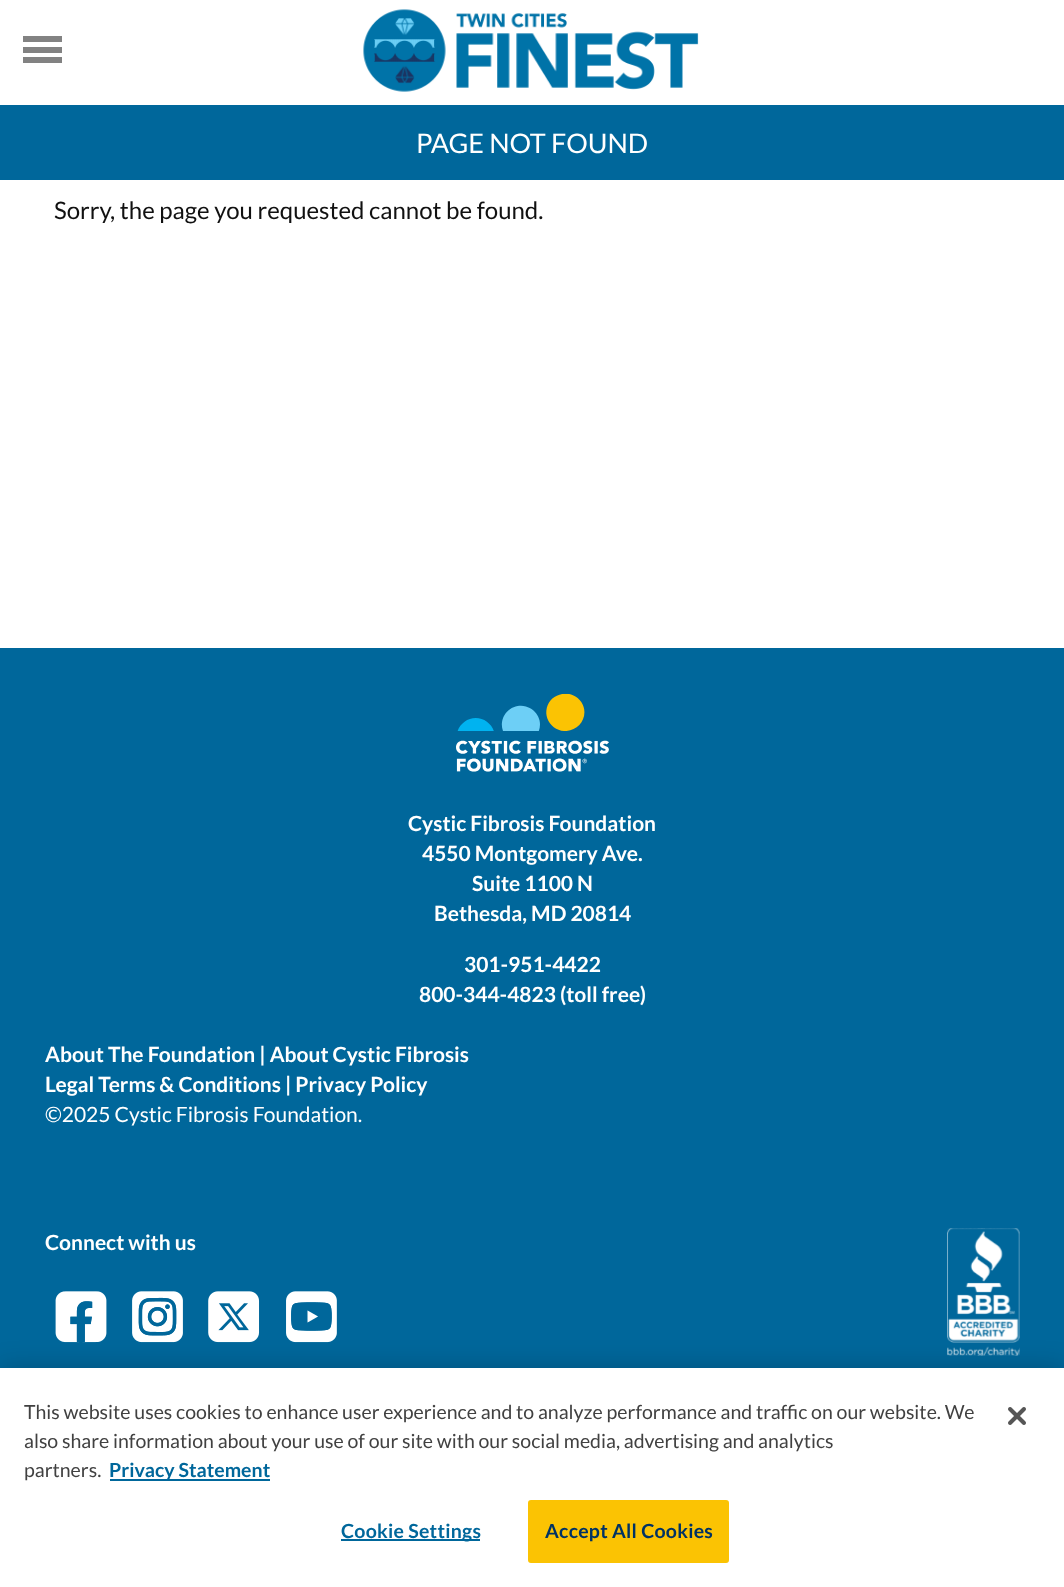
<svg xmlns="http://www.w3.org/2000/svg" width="1064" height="1587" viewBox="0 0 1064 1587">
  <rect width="100%" height="100%" fill="rgb(255,255,255)"/>
  <rect x="23" y="36" width="39" height="6" fill="rgb(130,130,130)"/>
  <rect x="23" y="47" width="39" height="6" fill="rgb(130,130,130)"/>
  <rect x="23" y="57" width="39" height="6" fill="rgb(130,130,130)"/>
  <image x="363" y="9" width="336" height="83" href="pic1.png"/>
  <rect x="0" y="105" width="1064" height="75" fill="rgb(0,103,155)"/>
  <text x="416" y="153" font-family="Lato" font-size="27" fill="rgb(255,255,255)">PAGE NOT FOUND</text>
  <text x="54" y="219" font-family="Lato" font-size="24" fill="rgb(17,17,17)">Sorry, the page you requested cannot be found.</text>
  <rect x="0" y="648" width="1064" height="720" fill="rgb(0,103,155)"/>
  <image x="456" y="693" width="153" height="79" href="pic2.png"/>
  <g font-family="Lato" font-size="21" font-weight="bold" fill="rgb(255,255,255)">
    <text x="408" y="831">Cystic Fibrosis Foundation</text>
    <text x="422" y="861">4550 Montgomery Ave.</text>
    <text x="472" y="891">Suite 1100 N</text>
    <text x="434" y="921">Bethesda, MD 20814</text>
    <text x="464" y="972">301-951-4422</text>
    <text x="419" y="1002">800-344-4823 (toll free)</text>
    <text>
      <tspan x="45" y="1062">About The Foundation | About Cystic Fibrosis</tspan>
      <tspan x="45" y="1092">Legal Terms &amp; Conditions | Privacy Policy</tspan>
    </text>
  </g>
  <text x="45" y="1122" font-family="Lato" font-size="21" fill="rgb(255,255,255)">©2025 Cystic Fibrosis Foundation.</text>
  <text x="45" y="1250" font-family="Lato" font-size="21" font-weight="bold" fill="rgb(255,255,255)">Connect with us</text>
  <image x="55" y="1291" width="52" height="52" href="pic3.png"/>
  <image x="132" y="1291" width="51" height="52" href="pic4.png"/>
  <image x="208" y="1291" width="52" height="52" href="pic5.png"/>
  <image x="286" y="1291" width="51" height="52" href="pic6.png"/>
  <image x="947" y="1228" width="73" height="128" href="pic7.png"/>
  <rect x="0" y="1368" width="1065" height="219" fill="rgba(0,0,0,0.2)" filter="blur(13.5px)"/>
  <rect x="0" y="1368" width="1064" height="219" fill="rgb(255,255,255)"/>
  <g font-family="Lato" font-size="19.5" fill="rgb(65,65,65)">
    <text>
      <tspan x="24" y="1419">This website uses cookies to enhance user experience and to analyze performance and traffic on our website. We</tspan>
      <tspan x="24" y="1448">also share information about your use of our site with our social media, advertising and analytics</tspan>
      <tspan x="24" y="1477">partners.</tspan>
    </text>
  </g>
  <rect x="110" y="1479" width="160" height="2" fill="rgb(0,103,155)"/>
  <text x="109" y="1477" font-family="Lato" font-size="19.5" font-weight="bold" fill="rgb(0,103,155)">Privacy Statement</text>
  <rect x="341" y="1539" width="139" height="2" fill="rgb(0,103,155)"/>
  <text x="341" y="1538" font-family="Lato" font-size="19.5" font-weight="bold" letter-spacing="0.25" fill="rgb(0,103,155)">Cookie Settings</text>
  <rect x="529" y="1501" width="199" height="61" rx="2" fill="rgb(251,195,3)" stroke="rgb(251,195,3)" stroke-width="2"/>
  <text x="545" y="1538" font-family="Lato" font-size="19.5" font-weight="bold" letter-spacing="0.25" fill="rgb(0,50,100)">Accept All Cookies</text>
  <image x="1008" y="1407" width="18" height="18" href="pic8.png"/>
</svg>
